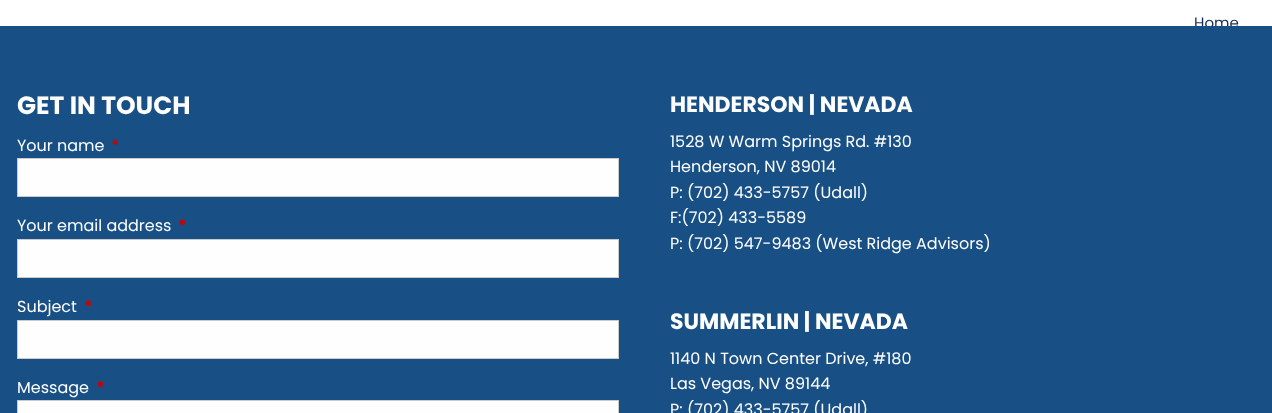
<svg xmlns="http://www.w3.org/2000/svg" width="1272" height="413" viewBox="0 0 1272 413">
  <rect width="100%" height="100%" fill="rgb(255,255,255)"/>
  <text x="1194" y="28" font-family="Poppins" font-size="15" fill="rgb(22,44,86)">Home</text>
  <rect x="0" y="26" width="1272" height="387" fill="rgb(24,80,133)"/>
  <text x="17" y="114" font-family="Poppins" font-size="25" font-weight="bold" fill="rgb(255,255,255)">GET IN TOUCH</text>
  <text x="17" y="151" font-family="Poppins" font-size="16" fill="rgb(255,255,255)">Your name</text>
  <text x="111" y="151" font-family="Poppins" font-size="16" font-weight="bold" fill="rgb(204,0,0)">*</text>
  <rect x="17.5" y="158.5" width="601" height="38" fill="rgb(254,254,254)" stroke="rgb(202,202,202)"/>
  <text x="17" y="231" font-family="Poppins" font-size="16" fill="rgb(255,255,255)">Your email address</text>
  <text x="178" y="231" font-family="Poppins" font-size="16" font-weight="bold" fill="rgb(204,0,0)">*</text>
  <rect x="17.5" y="239.5" width="601" height="38" fill="rgb(254,254,254)" stroke="rgb(202,202,202)"/>
  <text x="17" y="312" font-family="Poppins" font-size="16" fill="rgb(255,255,255)">Subject</text>
  <text x="84" y="312" font-family="Poppins" font-size="16" font-weight="bold" fill="rgb(204,0,0)">*</text>
  <rect x="17.5" y="320.5" width="601" height="38" fill="rgb(254,254,254)" stroke="rgb(202,202,202)"/>
  <text x="17" y="393" font-family="Poppins" font-size="16" fill="rgb(255,255,255)">Message</text>
  <text x="96" y="393" font-family="Poppins" font-size="16" font-weight="bold" fill="rgb(204,0,0)">*</text>
  <rect x="17.5" y="400.5" width="601" height="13" fill="rgb(254,254,254)" stroke="rgb(202,202,202)"/>
  <text x="670" y="112" font-family="Poppins" font-size="22" font-weight="bold" fill="rgb(255,255,255)">HENDERSON | NEVADA</text>
  <g font-family="Poppins" font-size="16" fill="rgb(255,255,255)">
    <text>
      <tspan x="670" y="147">1528 W Warm Springs Rd. #130</tspan>
      <tspan x="670" y="172">Henderson, NV 89014</tspan>
      <tspan x="670" y="198">P: (702) 433-5757 (Udall)</tspan>
      <tspan x="670" y="223">F:(702) 433-5589</tspan>
      <tspan x="670" y="249">P: (702) 547-9483 (West Ridge Advisors)</tspan>
    </text>
  </g>
  <text x="670" y="329" font-family="Poppins" font-size="22" font-weight="bold" fill="rgb(255,255,255)">SUMMERLIN | NEVADA</text>
  <g font-family="Poppins" font-size="16" fill="rgb(255,255,255)">
    <text>
      <tspan x="670" y="364">1140 N Town Center Drive, #180</tspan>
      <tspan x="670" y="389">Las Vegas, NV 89144</tspan>
      <tspan x="670" y="415">P: (702) 433-5757 (Udall)</tspan>
    </text>
  </g>
</svg>
